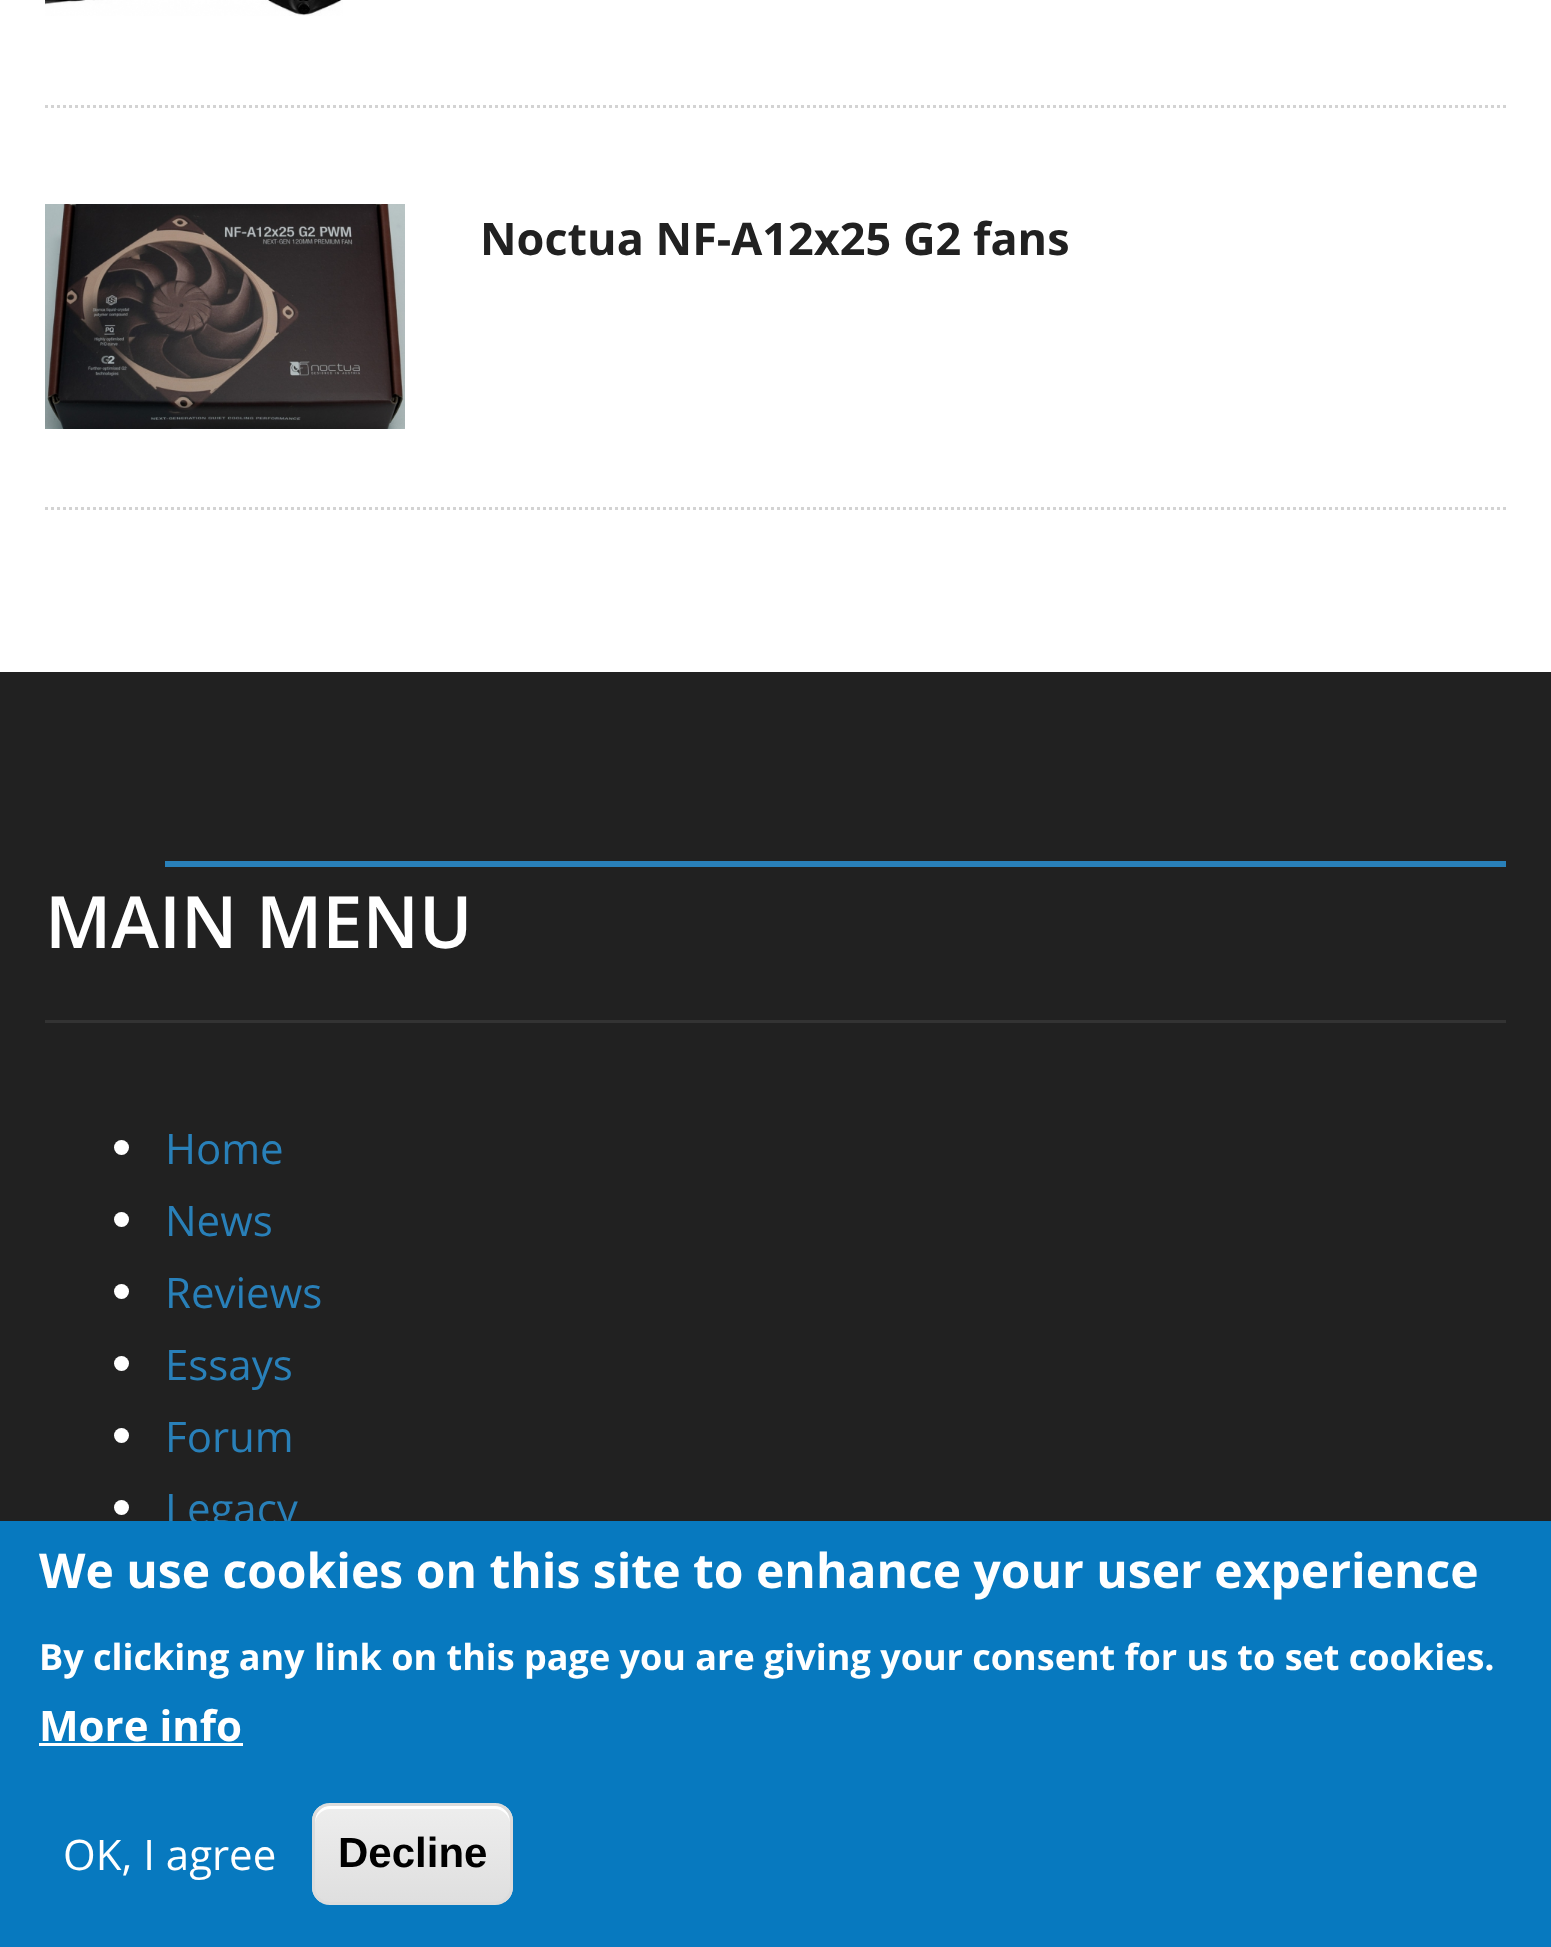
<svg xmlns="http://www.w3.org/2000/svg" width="1551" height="1947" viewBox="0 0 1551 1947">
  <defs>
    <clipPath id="clip1"><rect x="312" y="1803" width="201" height="102" rx="18"/></clipPath>
    <linearGradient id="g1" gradientUnits="userSpaceOnUse" x1="413" y1="1806" x2="413" y2="1902"><stop offset="0.05" stop-color="rgb(237,237,237)"/><stop offset="1" stop-color="rgb(223,223,223)"/></linearGradient>
  </defs>
  <rect width="100%" height="100%" fill="rgb(255,255,255)"/>
  <path d="M45 106.5H1506" fill="none" stroke="rgb(211,211,211)" stroke-width="3" stroke-dasharray="3 3"/>
  <image x="45" y="0" width="298" height="16" href="pic1.png"/>
  <path d="M45 508.5H1506" fill="none" stroke="rgb(211,211,211)" stroke-width="3" stroke-dasharray="3 3"/>
  <image x="45" y="204" width="360" height="225" href="pic2.png"/>
  <text x="480" y="255" font-family="Open Sans" font-size="45" font-weight="bold" fill="rgb(33,33,33)">Noctua NF-A12x25 G2 fans</text>
  <rect x="0" y="672" width="1551" height="849" fill="rgb(33,33,33)"/>
  <rect x="45" y="1020" width="1461" height="3" fill="rgb(51,51,51)"/>
  <text x="45" y="948" font-family="Open Sans" font-size="72" font-weight="600" fill="rgb(255,255,255)">MAIN MENU</text>
  <rect x="165" y="861" width="1341" height="6" fill="rgb(41,128,185)"/>
  <circle cx="121.5" cy="1147.5" r="7.5" fill="rgb(255,255,255)"/>
  <text x="165" y="1164" font-family="Open Sans" font-size="42" fill="rgb(41,128,185)">Home</text>
  <circle cx="121.5" cy="1219.5" r="7.5" fill="rgb(255,255,255)"/>
  <text x="165" y="1236" font-family="Open Sans" font-size="42" fill="rgb(41,128,185)">News</text>
  <circle cx="121.5" cy="1291.5" r="7.5" fill="rgb(255,255,255)"/>
  <text x="165" y="1308" font-family="Open Sans" font-size="42" fill="rgb(41,128,185)">Reviews</text>
  <circle cx="121.5" cy="1363.5" r="7.5" fill="rgb(255,255,255)"/>
  <text x="165" y="1380" font-family="Open Sans" font-size="42" fill="rgb(41,128,185)">Essays</text>
  <circle cx="121.5" cy="1435.5" r="7.5" fill="rgb(255,255,255)"/>
  <text x="165" y="1452" font-family="Open Sans" font-size="42" fill="rgb(41,128,185)">Forum</text>
  <circle cx="121.5" cy="1507.5" r="7.5" fill="rgb(255,255,255)"/>
  <text x="165" y="1524" font-family="Open Sans" font-size="42" fill="rgb(41,128,185)">Legacy</text>
  <rect x="0" y="1521" width="1551" height="426" fill="rgb(7,121,191)"/>
  <text x="39" y="1588" font-family="Open Sans" font-size="48" font-weight="bold" fill="rgb(255,255,255)">We use cookies on this site to enhance your user experience</text>
  <text x="39" y="1670" font-family="Open Sans" font-size="36" font-weight="bold" fill="rgb(255,255,255)">By clicking any link on this page you are giving your consent for us to set cookies.</text>
  <text x="39" y="1741" font-family="Open Sans" font-size="42" font-weight="bold" fill="rgb(255,255,255)">More info</text>
  <rect x="39" y="1743" width="204" height="3" fill="rgb(255,255,255)"/>
  <text x="63" y="1870" font-family="Open Sans" font-size="42" fill="rgb(255,255,255)">OK, I agree</text>
  <g clip-path="url(#clip1)">
    <rect x="312" y="1806" width="201" height="96" fill="url(#g1)"/>
  </g>
  <path d="M330 1809H495C503 1809 510 1816 510 1824C510 1799 485 1806 468 1806H358C340 1806 315 1799 315 1824C315 1816 322 1809 330 1809Z" fill="rgb(255,255,255)"/>
  <rect x="313.5" y="1804.5" width="198" height="99" rx="16.5" fill="none" stroke="rgb(220,220,220)" stroke-width="3"/>
  <text x="338" y="1867" font-family="Liberation Sans" font-size="42" font-weight="bold" fill="rgb(0,0,0)">Decline</text>
</svg>
